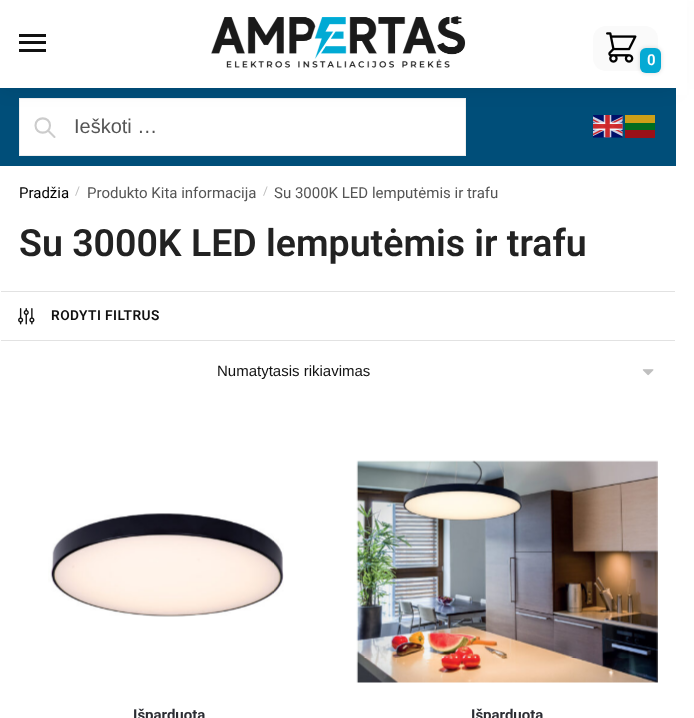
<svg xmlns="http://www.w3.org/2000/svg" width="694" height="718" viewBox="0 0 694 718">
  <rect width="100%" height="100%" fill="rgb(255,255,255)"/>
  <rect x="0" y="88" width="676" height="78" fill="rgb(0,78,121)"/>
  <rect x="19.5" y="98.5" width="446" height="57" fill="rgb(255,255,255)" stroke="rgb(238,238,238)"/>
  <path d="M54.5 137L48 130.5M50 125.5C50 135 35.5 135 35.5 125.5C35.5 116 50 116 50 125.5Z" fill="none" stroke="rgb(204,204,204)" stroke-width="2.1" stroke-linecap="round" stroke-linejoin="round"/>
  <image x="593" y="115" width="30" height="23" href="pic3.png"/>
  <rect x="625" y="115" width="30" height="8" fill="rgb(204,159,24)"/>
  <rect x="0" y="1" width="676" height="88" fill="rgba(0,0,0,0.08)" filter="blur(9.5px)"/>
  <rect x="0" y="0" width="676" height="88" fill="rgb(255,255,255)"/>
  <rect x="19" y="34" width="27" height="3" fill="rgb(17,17,17)"/>
  <rect x="19" y="41" width="27" height="3" fill="rgb(17,17,17)"/>
  <rect x="19" y="49" width="27" height="3" fill="rgb(17,17,17)"/>
  <image x="211" y="16" width="255" height="52" href="pic1.png"/>
  <rect x="593" y="26" width="65" height="45" rx="13" fill="rgb(250,250,250)"/>
  <image x="606" y="32" width="31" height="31" href="pic2.png"/>
  <rect x="640" y="48" width="21" height="25" rx="6" fill="rgba(17,17,17,0.17)" filter="blur(2px)"/>
  <rect x="640" y="48" width="21" height="25" rx="6" fill="rgb(5,170,212)"/>
  <text x="647" y="65" font-family="Roboto" font-size="15" font-weight="600" fill="rgb(255,255,255)">0</text>
  <rect x="676" y="0" width="11" height="95" fill="rgb(255,255,255)"/>
  <text x="74" y="133" font-family="Liberation Sans" font-size="20" fill="rgb(85,85,85)">Ieškoti …</text>
  <rect x="625" y="123" width="30" height="7" fill="rgb(0,108,31)"/>
  <rect x="625" y="130" width="30" height="8" fill="rgb(153,16,24)"/>
  <text x="19" y="198" font-family="Roboto" font-size="15" fill="rgb(0,0,0)">Pradžia</text>
  <text x="75" y="195" font-family="Roboto" font-size="12" fill="rgb(187,187,187)">/</text>
  <text x="87" y="198" font-family="Roboto" font-size="15" fill="rgb(85,85,85)">Produkto Kita informacija</text>
  <text x="263" y="195" font-family="Roboto" font-size="12" fill="rgb(187,187,187)">/</text>
  <text x="274" y="198" font-family="Roboto" font-size="15" fill="rgb(85,85,85)">Su 3000K LED lemputėmis ir trafu</text>
  <text x="19" y="256" font-family="Roboto" font-size="37.5" font-weight="600" fill="rgb(34,34,34)">Su 3000K LED lemputėmis ir trafu</text>
  <rect x="1" y="291" width="674" height="1" fill="rgb(226,226,226)"/>
  <rect x="1" y="340" width="674" height="1" fill="rgb(226,226,226)"/>
  <image x="18" y="308" width="17" height="17" href="pic4.png"/>
  <text x="51" y="320" font-family="Roboto" font-size="13.75" font-weight="600" letter-spacing="0.4" fill="rgb(17,17,17)">RODYTI FILTRUS</text>
  <image x="642" y="369" width="12" height="7" href="pic5.png"/>
  <text x="217" y="376" font-family="Liberation Sans" font-size="15" fill="rgb(17,17,17)">Numatytasis rikiavimas</text>
  <image x="48" y="513" width="236" height="104" href="pic6.png"/>
  <text x="133" y="720" font-family="Roboto" font-size="15" font-weight="bold" fill="rgb(44,45,51)">Išparduota</text>
  <image x="356" y="460" width="302" height="223" href="pic7.png"/>
  <text x="471" y="720" font-family="Roboto" font-size="15" font-weight="bold" fill="rgb(44,45,51)">Išparduota</text>
</svg>
